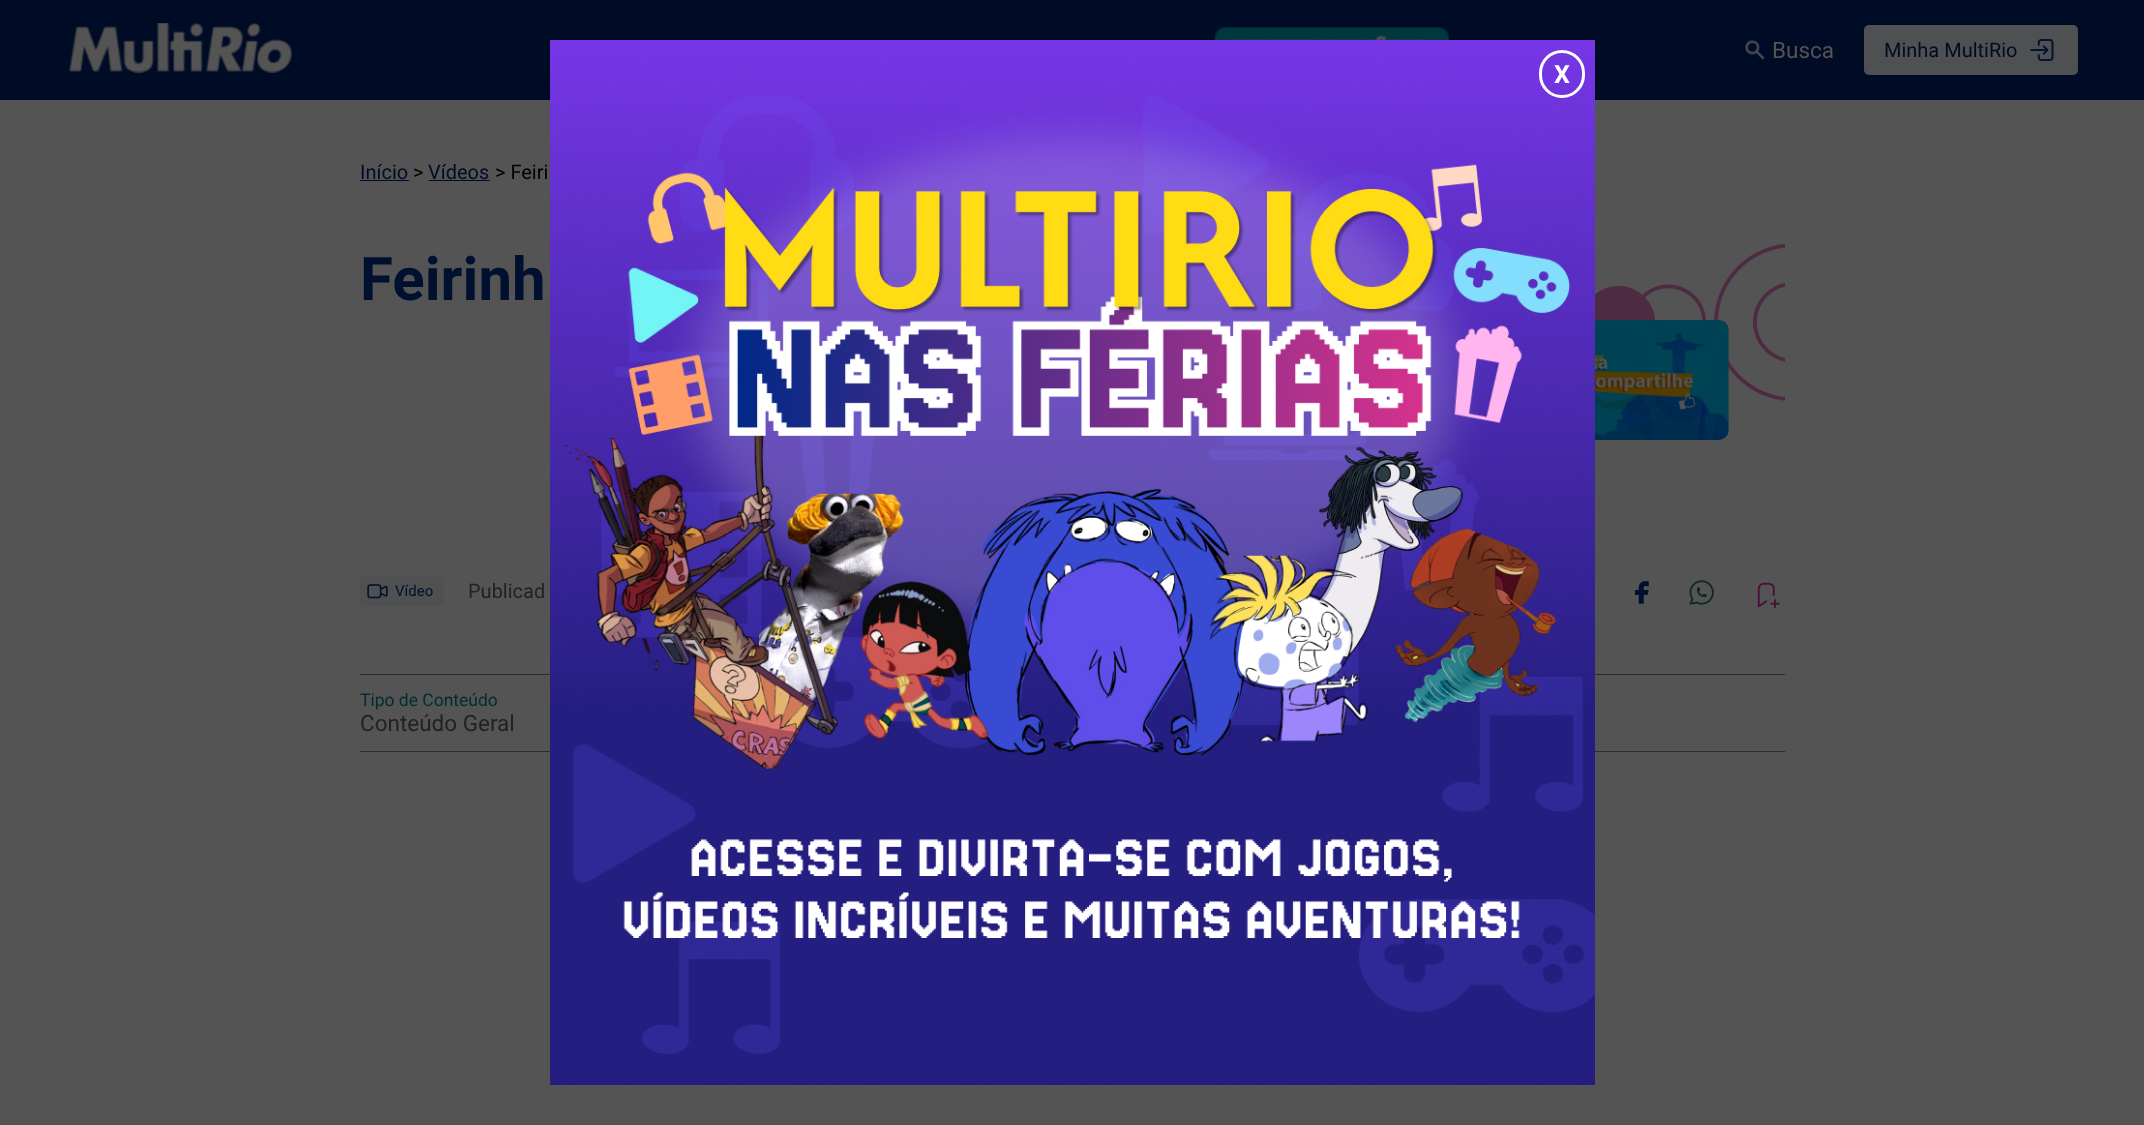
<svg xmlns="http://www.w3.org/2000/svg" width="2144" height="1125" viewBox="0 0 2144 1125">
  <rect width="100%" height="100%" fill="rgb(84,84,84)"/>
  <rect x="0" y="0" width="2144" height="100" fill="rgb(0,12,37)"/>
  <image x="68" y="23" width="224" height="50" href="pic1.png"/>
  <image x="1214" y="27" width="236" height="13" href="pic2.png"/>
  <image x="1745" y="40" width="20" height="20" href="pic3.png"/>
  <text x="1772" y="58" font-family="Roboto" font-size="22.5" fill="rgb(84,84,84)">Busca</text>
  <rect x="1864" y="25" width="214" height="50" rx="5" fill="rgb(78,80,82)"/>
  <text x="1884" y="57" font-family="Roboto" font-size="20" fill="rgb(0,12,37)">Minha MultiRio</text>
  <image x="2030" y="39" width="24" height="22" href="pic4.png"/>
  <rect x="360" y="674" width="1425" height="1" fill="rgb(45,45,45)"/>
  <rect x="360" y="751" width="1425" height="1" fill="rgb(45,45,45)"/>
  <image x="550" y="40" width="1045" height="1045" href="pic5.png"/>
  <rect x="1540.5" y="51.5" width="43" height="45" rx="21.5" fill="none" stroke="rgb(255,255,255)" stroke-width="3"/>
  <text x="1554" y="83" font-family="Roboto" font-size="25" font-weight="bold" fill="rgb(255,255,255)">X</text>
  <text x="360" y="179" font-family="Roboto" font-size="20" fill="rgb(0,12,37)">Início</text>
  <rect x="360" y="180" width="49" height="1" fill="rgb(0,12,37)"/>
  <text x="413" y="179" font-family="Roboto" font-size="20" fill="rgb(0,0,0)">&gt;</text>
  <text x="428" y="179" font-family="Roboto" font-size="20" fill="rgb(0,12,37)">Vídeos</text>
  <rect x="429" y="180" width="61" height="1" fill="rgb(0,12,37)"/>
  <text x="495" y="179" font-family="Roboto" font-size="20" fill="rgb(0,0,0)">&gt; Feiri</text>
  <text x="360" y="300" font-family="Roboto" font-size="60" font-weight="bold" fill="rgb(0,16,47)">Feirinh</text>
  <image x="1595" y="244" width="190" height="157" href="pic6.png"/>
  <image x="1595" y="320" width="134" height="120" href="pic7.png"/>
  <rect x="360" y="576" width="84" height="30" rx="5" fill="rgb(78,80,82)"/>
  <image x="367" y="584" width="21" height="15" href="pic8.png"/>
  <text x="395" y="596" font-family="Roboto" font-size="15" fill="rgb(0,16,47)">Vídeo</text>
  <text x="468" y="598" font-family="Roboto" font-size="20" fill="rgb(34,34,34)">Publicad</text>
  <image x="1635" y="581" width="14" height="23" href="pic9.png"/>
  <image x="1689" y="580" width="25" height="25" href="pic10.png"/>
  <image x="1757" y="582" width="23" height="27" href="pic11.png"/>
  <text x="360" y="706" font-family="Roboto" font-size="17.5" fill="rgb(0,45,48)">Tipo de Conteúdo</text>
  <text x="360" y="731" font-family="Roboto" font-size="22.5" fill="rgb(34,34,34)">Conteúdo Geral</text>
</svg>
